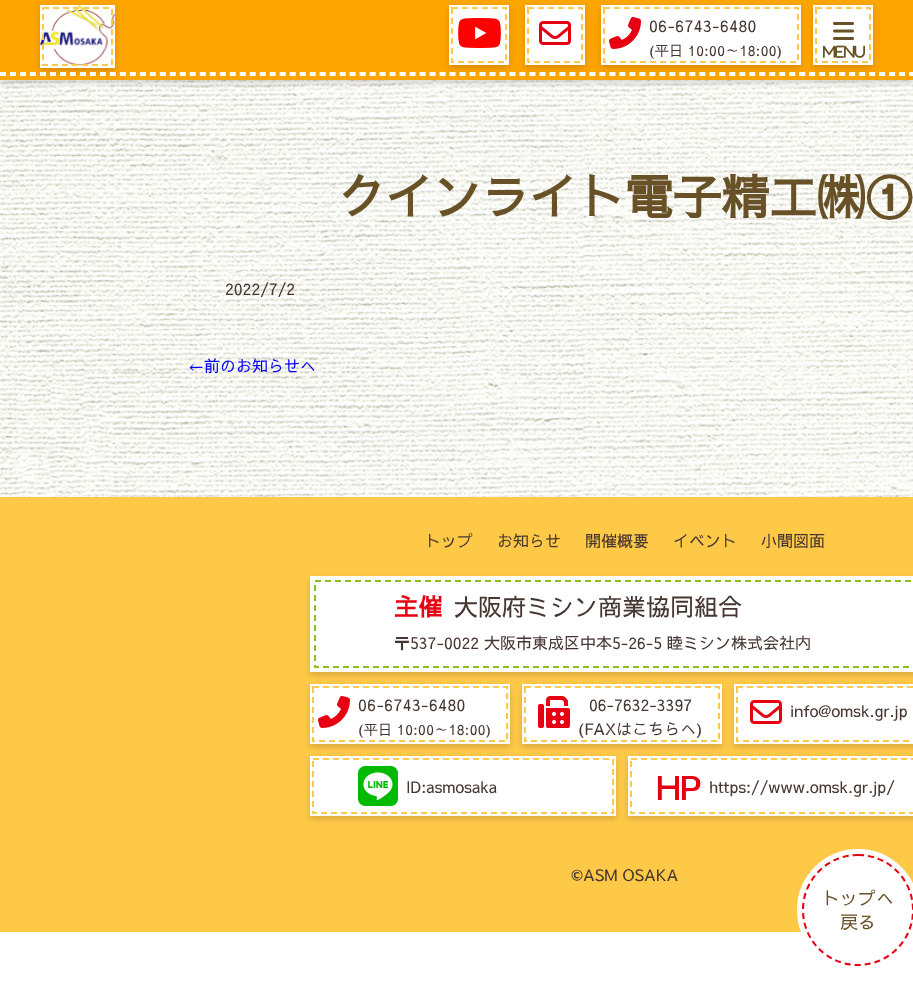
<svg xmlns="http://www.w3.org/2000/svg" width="913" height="994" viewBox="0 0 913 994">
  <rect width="100%" height="100%" fill="rgb(255,255,255)"/>
  <image x="0" y="80" width="913" height="417" href="pic7.png"/>
  <rect x="0" y="3" width="913" height="80" fill="rgba(0,0,0,0.16)" filter="blur(3px)"/>
  <rect x="0" y="0" width="913" height="80" fill="rgb(255,165,0)"/>
  <rect x="40" y="8" width="75" height="63" fill="rgba(0,0,0,0.16)" filter="blur(3px)"/>
  <rect x="40" y="5" width="75" height="63" fill="rgb(255,255,255)"/>
  <image x="40" y="5" width="75" height="60" href="pic1.png"/>
  <path d="M43 8H112V65H43Z" fill="none" stroke="rgb(255,201,72)" stroke-width="2" stroke-dasharray="6 4"/>
  <rect x="449" y="8" width="60" height="60" fill="rgba(0,0,0,0.16)" filter="blur(3px)"/>
  <rect x="449" y="5" width="60" height="60" fill="rgb(255,255,255)"/>
  <image x="458" y="18" width="43" height="30" href="pic2.png"/>
  <path d="M452 8H506V62H452Z" fill="none" stroke="rgb(255,201,72)" stroke-width="2" stroke-dasharray="6 4"/>
  <rect x="525" y="8" width="60" height="60" fill="rgba(0,0,0,0.16)" filter="blur(3px)"/>
  <rect x="525" y="5" width="60" height="60" fill="rgb(255,255,255)"/>
  <image x="539" y="21" width="32" height="24" href="pic3.png"/>
  <path d="M528 8H582V62H528Z" fill="none" stroke="rgb(255,201,72)" stroke-width="2" stroke-dasharray="6 4"/>
  <rect x="601" y="8" width="200" height="60" fill="rgba(0,0,0,0.16)" filter="blur(3px)"/>
  <rect x="601" y="5" width="200" height="60" fill="rgb(255,255,255)"/>
  <image x="609" y="17" width="32" height="32" href="pic4.png"/>
  <text x="649" y="32" font-family="Sawarabi Gothic" font-size="16" letter-spacing="0.4" fill="rgb(70,54,49)">06-6743-6480</text>
  <text x="649" y="56" font-family="Sawarabi Gothic" font-size="14" letter-spacing="0.4" fill="rgb(70,54,49)">(平日 10:00～18:00)</text>
  <path d="M604 8H798V62H604Z" fill="none" stroke="rgb(255,201,72)" stroke-width="2" stroke-dasharray="6 4"/>
  <path d="M0 73H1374" fill="none" stroke="rgb(255,255,255)" stroke-width="2" stroke-dasharray="6 3.99"/>
  <path d="M0 75H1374" fill="none" stroke="rgb(255,255,255)" stroke-width="2" stroke-dasharray="6 3.99"/>
  <rect x="813" y="8" width="60" height="60" fill="rgba(0,0,0,0.16)" filter="blur(3px)"/>
  <rect x="813" y="5" width="60" height="60" fill="rgb(255,255,255)"/>
  <image x="833" y="22" width="21" height="18" href="pic5.png"/>
  <image x="823" y="45" width="42" height="13" href="pic6.png"/>
  <path d="M816 8H870V62H816Z" fill="none" stroke="rgb(255,201,72)" stroke-width="2" stroke-dasharray="6 4"/>
  <text x="337" y="215" font-family="Sawarabi Gothic" font-size="48" font-weight="bold" fill="rgb(104,81,39)">クインライト電子精工㈱①</text>
  <text x="225" y="295" font-family="Sawarabi Gothic" font-size="16" fill="rgb(70,54,49)">2022/7/2</text>
  <text x="188" y="372" font-family="Sawarabi Gothic" font-size="16" fill="rgb(0,0,238)">←前のお知らせへ</text>
  <rect x="0" y="497" width="913" height="435" fill="rgb(255,201,72)"/>
  <g font-family="Sawarabi Gothic" font-size="16" fill="rgb(70,54,49)">
    <text x="425" y="547">トップ</text>
    <text x="497" y="547">お知らせ</text>
    <text x="585" y="547">開催概要</text>
    <text x="673" y="547">イベント</text>
    <text x="761" y="547">小間図面</text>
  </g>
  <rect x="310" y="579" width="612" height="96" fill="rgba(0,0,0,0.16)" filter="blur(3px)"/>
  <rect x="310" y="576" width="603" height="96" fill="rgb(255,255,255)"/>
  <text x="394" y="616" font-family="Sawarabi Gothic" font-size="24" font-weight="bold" fill="rgb(230,0,18)">主催</text>
  <text x="454" y="616" font-family="Sawarabi Gothic" font-size="24" fill="rgb(70,54,49)">大阪府ミシン商業協同組合</text>
  <text x="394" y="649" font-family="Sawarabi Gothic" font-size="16" fill="rgb(70,54,49)">〒537-0022 大阪市東成区中本5-26-5 睦ミシン株式会社内</text>
  <path d="M315 581H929V667H315Z" fill="none" stroke="rgb(142,195,31)" stroke-width="2" stroke-dasharray="6 4"/>
  <rect x="310" y="687" width="200" height="60" fill="rgba(0,0,0,0.16)" filter="blur(3px)"/>
  <rect x="310" y="684" width="200" height="60" fill="rgb(255,255,255)"/>
  <image x="318" y="696" width="32" height="32" href="pic4.png"/>
  <text x="358" y="711" font-family="Sawarabi Gothic" font-size="16" letter-spacing="0.4" fill="rgb(70,54,49)">06-6743-6480</text>
  <text x="358" y="735" font-family="Sawarabi Gothic" font-size="14" letter-spacing="0.4" fill="rgb(70,54,49)">(平日 10:00～18:00)</text>
  <path d="M313 687H507V741H313Z" fill="none" stroke="rgb(255,201,72)" stroke-width="2" stroke-dasharray="6 4"/>
  <rect x="522" y="687" width="200" height="60" fill="rgba(0,0,0,0.16)" filter="blur(3px)"/>
  <rect x="522" y="684" width="200" height="60" fill="rgb(255,255,255)"/>
  <image x="538" y="696" width="32" height="32" href="pic8.png"/>
  <g font-family="Sawarabi Gothic" font-size="16" fill="rgb(70,54,49)">
    <text x="589" y="711">06-7632-3397</text>
    <text x="578" y="735">(FAXはこちらへ)</text>
  </g>
  <path d="M525 687H719V741H525Z" fill="none" stroke="rgb(255,201,72)" stroke-width="2" stroke-dasharray="6 4"/>
  <rect x="734" y="687" width="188" height="60" fill="rgba(0,0,0,0.16)" filter="blur(3px)"/>
  <rect x="734" y="684" width="179" height="60" fill="rgb(255,255,255)"/>
  <image x="750" y="700" width="32" height="24" href="pic3.png"/>
  <text x="790" y="717" font-family="Sawarabi Gothic" font-size="16" fill="rgb(70,54,49)">info@omsk.gr.jp</text>
  <path d="M737 687H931V741H737Z" fill="none" stroke="rgb(255,201,72)" stroke-width="2" stroke-dasharray="6 4"/>
  <rect x="310" y="759" width="306" height="60" fill="rgba(0,0,0,0.16)" filter="blur(3px)"/>
  <rect x="310" y="756" width="306" height="60" fill="rgb(255,255,255)"/>
  <image x="358" y="766" width="40" height="40" href="pic9.png"/>
  <text x="406" y="793" font-family="Sawarabi Gothic" font-size="16" fill="rgb(70,54,49)">ID:asmosaka</text>
  <path d="M313 759H613V813H313Z" fill="none" stroke="rgb(255,201,72)" stroke-width="2" stroke-dasharray="6 4"/>
  <rect x="628" y="759" width="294" height="60" fill="rgba(0,0,0,0.16)" filter="blur(3px)"/>
  <rect x="628" y="756" width="285" height="60" fill="rgb(255,255,255)"/>
  <text x="656" y="800" font-family="Sawarabi Gothic" font-size="32" font-weight="bold" fill="rgb(230,0,18)">HP</text>
  <text x="709" y="793" font-family="Sawarabi Gothic" font-size="16" fill="rgb(70,54,49)">https://www.omsk.gr.jp/</text>
  <path d="M631 759H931V813H631Z" fill="none" stroke="rgb(255,201,72)" stroke-width="2" stroke-dasharray="6 4"/>
  <text x="571" y="881" font-family="Sawarabi Gothic" font-size="16" fill="rgb(70,54,49)">©ASM OSAKA</text>
  <circle cx="858" cy="910" r="58.5" fill="none" stroke="rgb(255,255,255)" stroke-width="5"/>
  <circle cx="858" cy="910" r="56" fill="rgb(255,255,255)"/>
  <path d="M858 855C888.5 855 913 879.5 913 910C913 940.5 888.5 965 858 965C827.5 965 803 940.5 803 910C803 879.5 827.5 855 858 855Z" fill="none" stroke="rgb(230,0,18)" stroke-width="2" stroke-dasharray="6 4"/>
  <g font-family="Sawarabi Gothic" font-size="18" fill="rgb(104,81,39)">
    <text x="822" y="905">トップへ</text>
    <text x="840" y="929">戻る</text>
  </g>
</svg>
